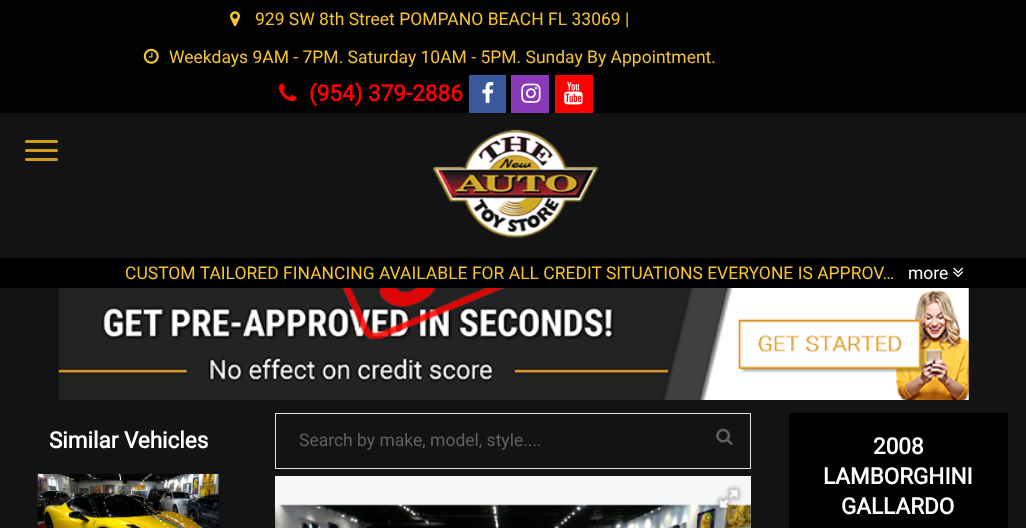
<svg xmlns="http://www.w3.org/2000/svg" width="1026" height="528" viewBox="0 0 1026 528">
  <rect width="100%" height="100%" fill="rgb(19,19,19)"/>
  <rect x="0" y="0" width="1026" height="113" fill="rgb(2,2,2)"/>
  <image x="230" y="11" width="10" height="16" href="pic1.png"/>
  <text x="255" y="25" font-family="Roboto" font-size="17.5" fill="rgb(245,195,49)">929 SW 8th Street POMPANO BEACH FL 33069 |</text>
  <image x="143" y="48" width="16" height="16" href="pic2.png"/>
  <text x="169" y="63" font-family="Roboto" font-size="17.5" fill="rgb(245,195,49)">Weekdays 9AM - 7PM. Saturday 10AM - 5PM. Sunday By Appointment.</text>
  <image x="278" y="83" width="19" height="19" href="pic3.png"/>
  <text x="309" y="101" font-family="Roboto" font-size="22.5" font-weight="bold" fill="rgb(255,0,0)">(954) 379-2886</text>
  <rect x="469" y="75" width="37" height="38" fill="rgb(59,89,152)"/>
  <image x="482" y="82" width="12" height="21" href="pic4.png"/>
  <rect x="511" y="75" width="38" height="38" fill="rgb(138,58,185)"/>
  <image x="521" y="83" width="20" height="20" href="pic5.png"/>
  <rect x="555" y="75" width="38" height="38" fill="rgb(255,0,0)"/>
  <image x="564" y="81" width="19" height="24" href="pic6.png"/>
  <rect x="25" y="140" width="33" height="3" rx="1.5" fill="rgb(207,156,26)"/>
  <rect x="25" y="149" width="33" height="3" rx="1.5" fill="rgb(207,156,26)"/>
  <rect x="25" y="158" width="33" height="3" rx="1.5" fill="rgb(207,156,26)"/>
  <image x="433" y="129" width="166" height="109" href="pic7.png"/>
  <rect x="0" y="258" width="1026" height="30" fill="rgb(0,0,0)"/>
  <text x="125" y="279" font-family="Roboto" font-size="17.5" fill="rgb(245,195,49)">CUSTOM TAILORED FINANCING AVAILABLE FOR ALL CREDIT SITUATIONS EVERYONE IS APPROV…</text>
  <text x="908" y="279" font-family="Roboto" font-size="17.5" fill="rgb(255,255,255)">more</text>
  <image x="953" y="267" width="10" height="10" href="pic8.png"/>
  <image x="58" y="288" width="911" height="112" href="pic9.png"/>
  <image x="342" y="288" width="163" height="51" href="pic10.png"/>
  <text x="49" y="448" font-family="Roboto" font-size="22.5" font-weight="bold" fill="rgb(255,255,255)">Similar Vehicles</text>
  <image x="37" y="473" width="182" height="55" href="pic11.png"/>
  <rect x="275.5" y="413.5" width="475" height="55" fill="none" stroke="rgb(227,227,227)"/>
  <text x="299" y="446" font-family="Roboto" font-size="17.5" fill="rgb(98,98,98)">Search by make, model, style....</text>
  <image x="716" y="428" width="17" height="17" href="pic12.png"/>
  <rect x="275" y="476" width="476" height="52" fill="rgb(246,246,246)"/>
  <image x="275" y="504" width="476" height="24" href="pic14.png"/>
  <image x="715" y="485" width="28" height="28" href="pic13.png"/>
  <rect x="789" y="413" width="219" height="115" fill="rgb(0,0,0)"/>
  <g font-family="Roboto" font-size="22.5" font-weight="bold" fill="rgb(255,255,255)">
    <text x="873" y="454">2008</text>
    <text x="823" y="484">LAMBORGHINI</text>
    <text x="841" y="514">GALLARDO</text>
  </g>
</svg>
